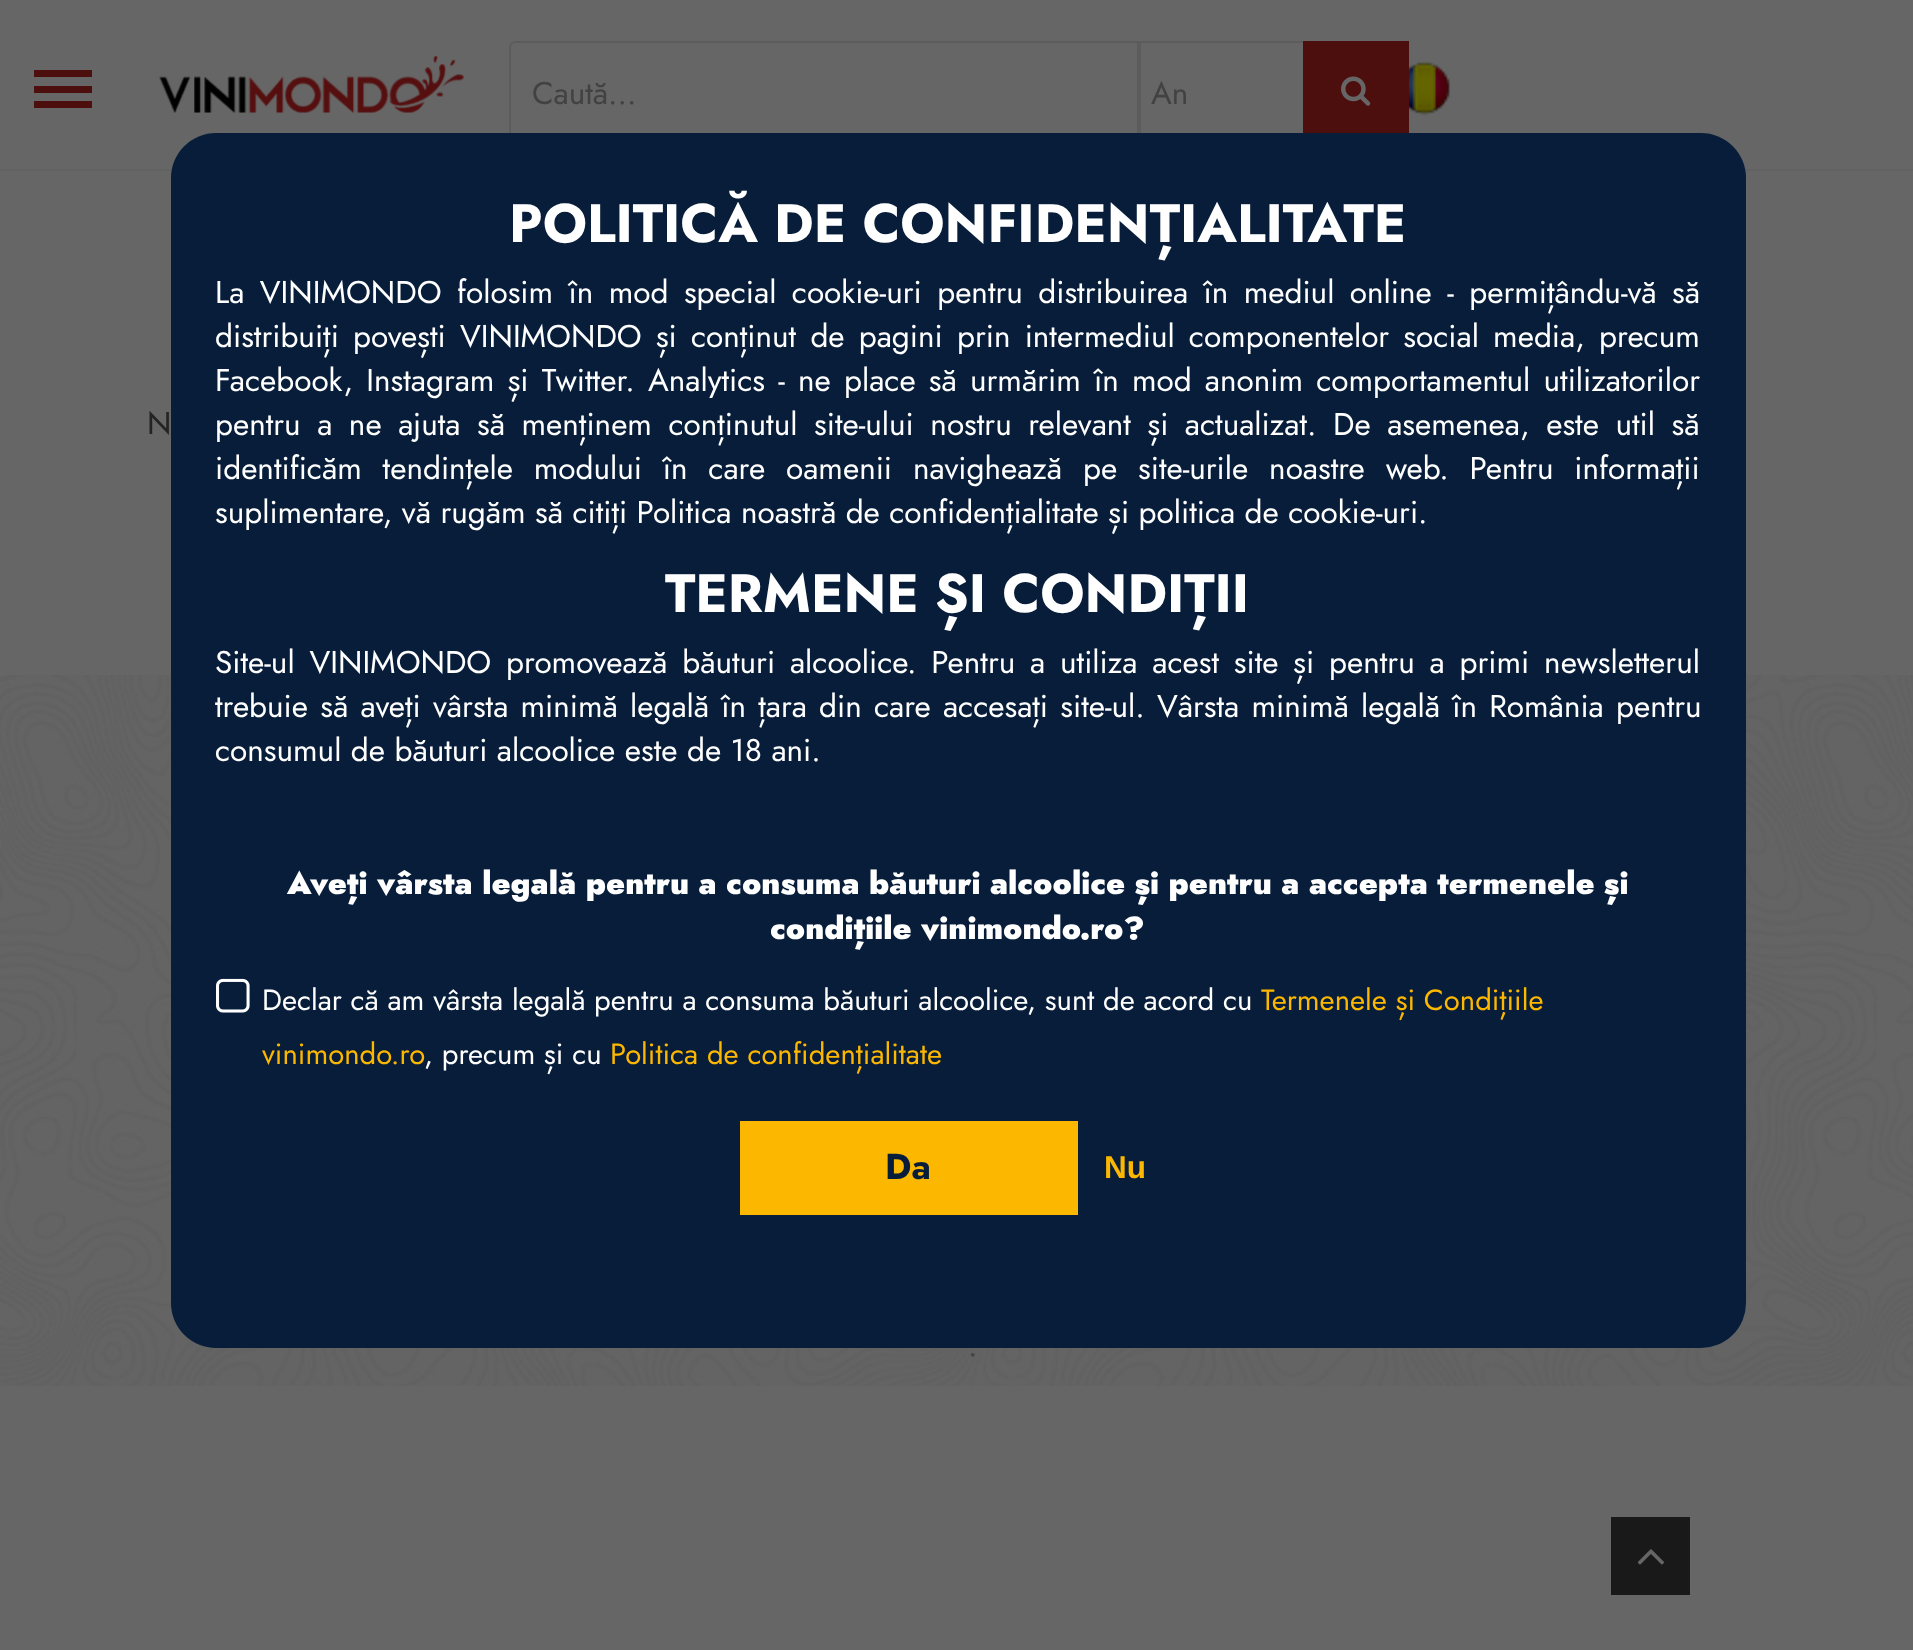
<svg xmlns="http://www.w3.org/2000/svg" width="1913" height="1650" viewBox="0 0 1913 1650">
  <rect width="100%" height="100%" fill="rgb(102,102,102)"/>
  <rect x="34" y="70" width="58" height="7" fill="rgb(77,14,14)"/>
  <rect x="34" y="86" width="58" height="7" fill="rgb(77,14,14)"/>
  <rect x="34" y="101" width="58" height="7" fill="rgb(77,14,14)"/>
  <image x="159" y="56" width="305" height="57" href="pic1.png"/>
  <path d="M516 42H1138V143H516C512.5 143 510 140.5 510 137V48C510 44.5 512.5 42 516 42Z" fill="none" stroke="rgb(92,92,92)" stroke-width="2"/>
  <text x="532" y="104" font-family="Jost" font-size="31.5" fill="rgb(66,66,66)">Caută...</text>
  <rect x="1140" y="42" width="268" height="101" fill="none" stroke="rgb(92,92,92)" stroke-width="2"/>
  <text x="1151" y="104" font-family="Jost" font-size="31.5" fill="rgb(66,66,66)">An</text>
  <rect x="1303" y="41" width="106" height="92" fill="rgb(77,14,14)"/>
  <image x="1341" y="76" width="30" height="30" href="pic2.png"/>
  <image x="1409" y="62" width="41" height="54" href="pic3.png"/>
  <rect x="0" y="169" width="1913" height="2" fill="rgb(97,98,98)"/>
  <text x="147" y="434" font-family="Jost" font-size="31.5" fill="rgb(36,36,36)">N</text>
  <image x="0" y="675" width="1913" height="711" href="pic5.png"/>
  <rect x="171" y="133" width="1575" height="1215" rx="45" fill="rgb(7,29,57)"/>
  <text x="509" y="242" font-family="Jost" font-size="54" font-weight="bold" fill="rgb(255,255,255)">POLITICĂ DE CONFIDENȚIALITATE</text>
  <g font-family="Jost" font-size="31.5" fill="rgb(255,255,255)">
    <text>
      <tspan x="215" y="303" word-spacing="6">La VINIMONDO folosim în mod special cookie-uri pentru distribuirea în mediul online - permițându-vă să</tspan>
      <tspan x="215" y="347" word-spacing="4.75">distribuiți povești VINIMONDO și conținut de pagini prin intermediul componentelor social media, precum</tspan>
      <tspan x="215" y="391" word-spacing="3.75">Facebook, Instagram și Twitter. Analytics - ne place să urmărim în mod anonim comportamentul utilizatorilor</tspan>
      <tspan x="215" y="435" word-spacing="7.1">pentru a ne ajuta să menținem conținutul site-ului nostru relevant și actualizat. De asemenea, este util să</tspan>
      <tspan x="215" y="479" word-spacing="11.4">identificăm tendințele modului în care oamenii navighează pe site-urile noastre web. Pentru informații</tspan>
      <tspan x="215" y="523">suplimentare, vă rugăm să citiți Politica noastră de confidențialitate și politica de cookie-uri.</tspan>
    </text>
  </g>
  <text x="665" y="612" font-family="Jost" font-size="54" font-weight="bold" fill="rgb(255,255,255)">TERMENE ȘI CONDIȚII</text>
  <g font-family="Jost" font-size="31.5" fill="rgb(255,255,255)">
    <text>
      <tspan x="215" y="673" word-spacing="5.4">Site-ul VINIMONDO promovează băuturi alcoolice. Pentru a utiliza acest site și pentru a primi newsletterul</tspan>
      <tspan x="215" y="717" word-spacing="2.75">trebuie să aveți vârsta minimă legală în țara din care accesați site-ul. Vârsta minimă legală în România pentru</tspan>
      <tspan x="215" y="761">consumul de băuturi alcoolice este de 18 ani.</tspan>
    </text>
  </g>
  <g font-family="Jost" font-size="31.5" font-weight="900" fill="rgb(255,255,255)">
    <text x="287" y="894">Aveți vârsta legală pentru a consuma băuturi alcoolice și pentru a accepta termenele și</text>
    <text x="770" y="939">condițiile vinimondo.ro?</text>
  </g>
  <image x="216" y="978" width="34" height="35" href="pic4.png"/>
  <text x="262" y="1010" font-family="Jost" font-size="29.25" fill="rgb(255,255,255)">Declar că am vârsta legală pentru a consuma băuturi alcoolice, sunt de acord cu</text>
  <g font-family="Jost" font-size="29.25" fill="rgb(252,183,0)">
    <text x="1261" y="1010">Termenele și Condițiile</text>
    <text x="262" y="1064">vinimondo.ro</text>
  </g>
  <text x="424" y="1064" font-family="Jost" font-size="29.25" fill="rgb(255,255,255)">, precum și cu</text>
  <text x="610" y="1064" font-family="Jost" font-size="29.25" fill="rgb(252,183,0)">Politica de confidențialitate</text>
  <rect x="740" y="1121" width="338" height="94" fill="rgb(252,183,0)"/>
  <text x="885" y="1179" font-family="Jost" font-size="36" font-weight="bold" fill="rgb(7,29,57)">Da</text>
  <text x="1104" y="1178" font-family="Liberation Sans" font-size="31.5" font-weight="bold" fill="rgb(252,183,0)">Nu</text>
  <text x="968" y="1356" font-family="Jost" font-size="31.5" fill="rgb(66,66,66)">.</text>
  <rect x="1611" y="1517" width="79" height="78" fill="rgb(25,25,25)"/>
  <image x="1637" y="1549" width="27" height="16" href="pic6.png"/>
</svg>
